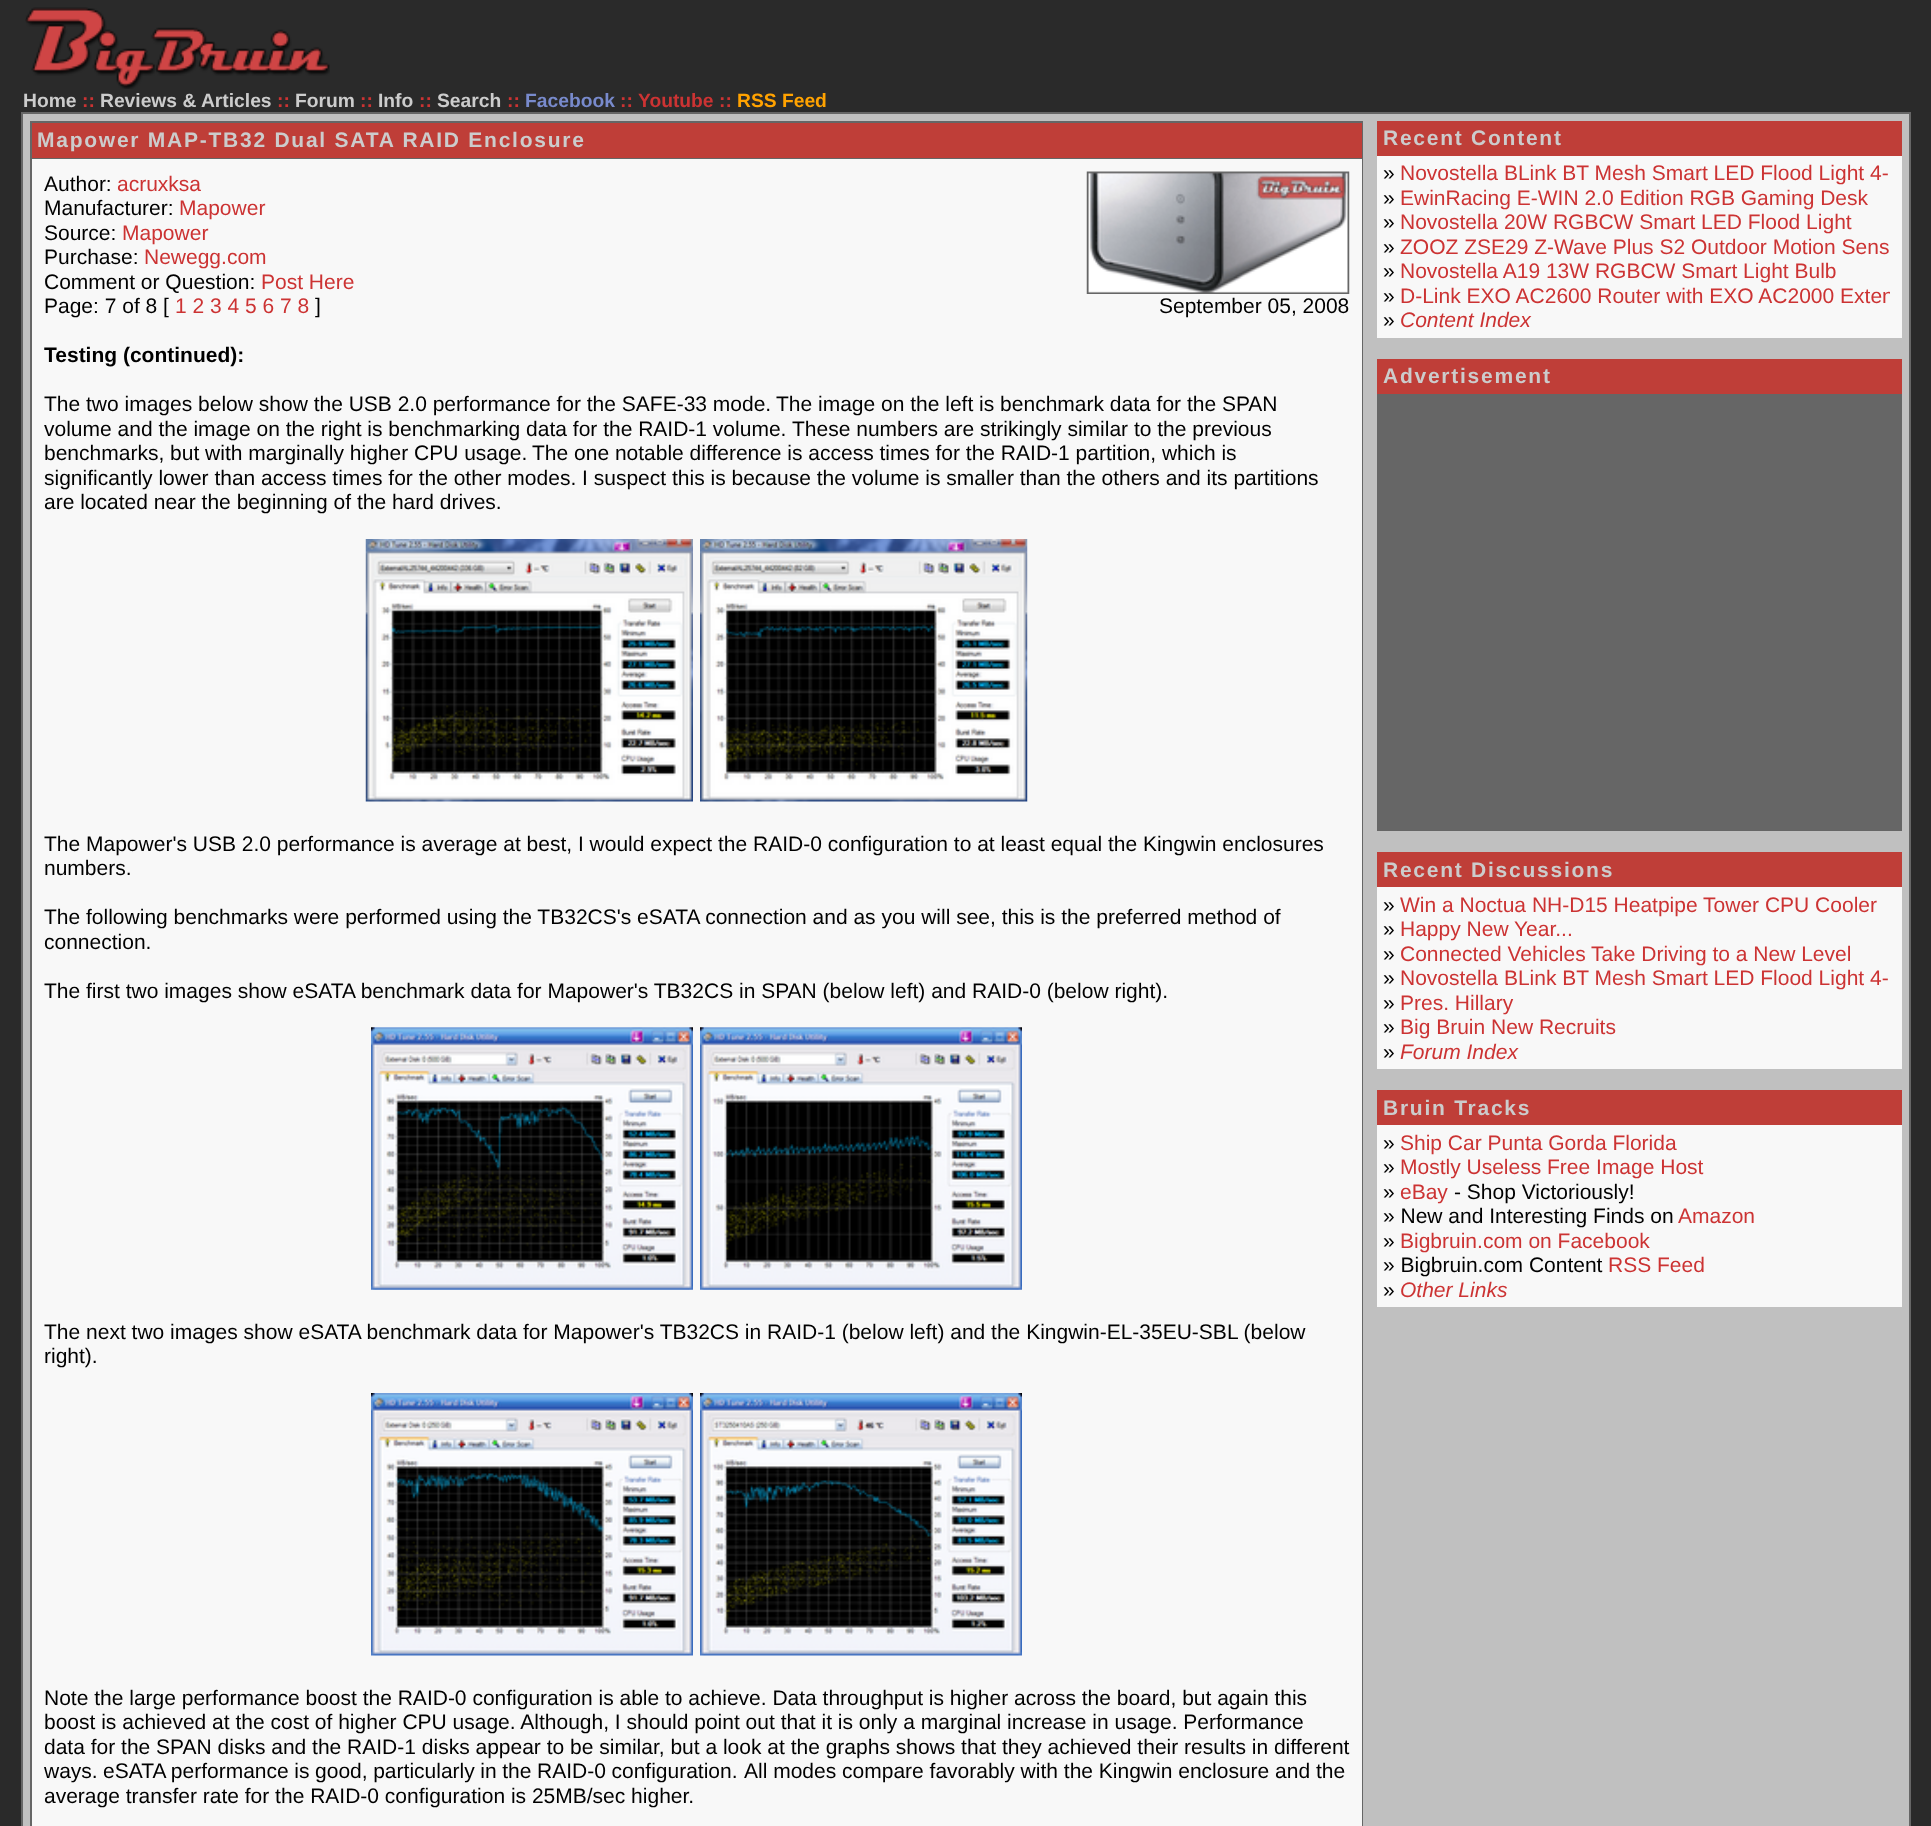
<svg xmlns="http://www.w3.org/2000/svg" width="1931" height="1826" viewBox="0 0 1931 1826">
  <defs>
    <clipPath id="clip1"><rect x="1383" y="284" width="507" height="24"/></clipPath>
  </defs>
  <rect width="100%" height="100%" fill="rgb(42,42,42)"/>
  <rect x="21" y="112" width="1890" height="1714" fill="rgb(102,102,102)"/>
  <image x="25" y="7" width="305" height="82" href="pic1.png"/>
  <text x="23" y="107" font-family="Liberation Sans" font-size="19.25" font-weight="bold" fill="rgb(204,204,204)">Home</text>
  <text x="82" y="107" font-family="Liberation Sans" font-size="19.25" font-weight="bold" fill="rgb(204,51,51)">::</text>
  <text x="100" y="107" font-family="Liberation Sans" font-size="19.25" font-weight="bold" fill="rgb(204,204,204)">Reviews &amp; Articles</text>
  <text x="277" y="107" font-family="Liberation Sans" font-size="19.25" font-weight="bold" fill="rgb(204,51,51)">::</text>
  <text x="295" y="107" font-family="Liberation Sans" font-size="19.25" font-weight="bold" fill="rgb(204,204,204)">Forum</text>
  <text x="360" y="107" font-family="Liberation Sans" font-size="19.25" font-weight="bold" fill="rgb(204,51,51)">::</text>
  <text x="378" y="107" font-family="Liberation Sans" font-size="19.25" font-weight="bold" fill="rgb(204,204,204)">Info</text>
  <text x="419" y="107" font-family="Liberation Sans" font-size="19.25" font-weight="bold" fill="rgb(204,51,51)">::</text>
  <text x="437" y="107" font-family="Liberation Sans" font-size="19.25" font-weight="bold" fill="rgb(204,204,204)">Search</text>
  <text x="507" y="107" font-family="Liberation Sans" font-size="19.25" font-weight="bold" fill="rgb(204,51,51)">::</text>
  <text x="525" y="107" font-family="Liberation Sans" font-size="19.25" font-weight="bold" fill="rgb(120,138,204)">Facebook</text>
  <g font-family="Liberation Sans" font-size="19.25" font-weight="bold" fill="rgb(204,51,51)">
    <text x="620" y="107">::</text>
    <text x="638" y="107">Youtube</text>
    <text x="719" y="107">::</text>
  </g>
  <text x="737" y="107" font-family="Liberation Sans" font-size="19.25" font-weight="bold" fill="rgb(255,162,0)">RSS Feed</text>
  <rect x="23" y="114" width="1886" height="1712" fill="rgb(192,192,192)"/>
  <rect x="30" y="121" width="1333" height="1705" fill="rgb(102,102,102)"/>
  <rect x="32" y="123" width="1330" height="35" fill="rgb(191,62,56)"/>
  <text x="37" y="147" font-family="Liberation Sans" font-size="21" font-weight="bold" letter-spacing="1.75" fill="rgb(204,204,204)">Mapower MAP-TB32 Dual SATA RAID Enclosure</text>
  <rect x="32" y="159" width="1330" height="1667" fill="rgb(248,248,248)"/>
  <text x="44" y="191" font-family="Liberation Sans" font-size="21" fill="rgb(0,0,0)">Author:</text>
  <text x="117" y="191" font-family="Liberation Sans" font-size="21" fill="rgb(204,51,51)">acruxksa</text>
  <text x="44" y="215" font-family="Liberation Sans" font-size="21" fill="rgb(0,0,0)">Manufacturer:</text>
  <text x="179" y="215" font-family="Liberation Sans" font-size="21" fill="rgb(204,51,51)">Mapower</text>
  <text x="44" y="240" font-family="Liberation Sans" font-size="21" fill="rgb(0,0,0)">Source:</text>
  <text x="122" y="240" font-family="Liberation Sans" font-size="21" fill="rgb(204,51,51)">Mapower</text>
  <text x="44" y="264" font-family="Liberation Sans" font-size="21" fill="rgb(0,0,0)">Purchase:</text>
  <text x="144" y="264" font-family="Liberation Sans" font-size="21" fill="rgb(204,51,51)">Newegg.com</text>
  <text x="44" y="289" font-family="Liberation Sans" font-size="21" fill="rgb(0,0,0)">Comment or Question:</text>
  <text x="261" y="289" font-family="Liberation Sans" font-size="21" fill="rgb(204,51,51)">Post Here</text>
  <text x="44" y="313" font-family="Liberation Sans" font-size="21" fill="rgb(0,0,0)">Page: 7 of 8 [</text>
  <text x="175" y="313" font-family="Liberation Sans" font-size="21" fill="rgb(204,51,51)">1 2 3 4 5 6 7 8</text>
  <text x="315" y="313" font-family="Liberation Sans" font-size="21" fill="rgb(0,0,0)">]</text>
  <image x="1086" y="171" width="264" height="123" href="pic2.png"/>
  <text x="1159" y="313" font-family="Liberation Sans" font-size="21" fill="rgb(0,0,0)">September 05, 2008</text>
  <text x="44" y="362" font-family="Liberation Sans" font-size="21" font-weight="bold" fill="rgb(0,0,0)">Testing (continued):</text>
  <g font-family="Liberation Sans" font-size="21" fill="rgb(0,0,0)">
    <text x="44" y="411">The two images below show the USB 2.0 performance for the SAFE-33 mode.</text>
    <text x="776" y="411">The image on the left is benchmark data for the SPAN</text>
    <text x="44" y="436">volume and the image on the right is benchmarking data for the RAID-1 volume.</text>
    <text x="792" y="436">These numbers are strikingly similar to the previous</text>
    <text x="44" y="460">benchmarks, but with marginally higher CPU usage.</text>
    <text x="532" y="460">The one notable difference is access times for the RAID-1 partition, which is</text>
    <text>
      <tspan x="44" y="485">significantly lower than access times for the other modes. I suspect this is because the volume is smaller than the others and its partitions</tspan>
      <tspan x="44" y="509">are located near the beginning of the hard drives.</tspan>
    </text>
  </g>
  <image x="365" y="539" width="328" height="263" href="pic3.png"/>
  <image x="700" y="539" width="328" height="263" href="pic4.png"/>
  <g font-family="Liberation Sans" font-size="21" fill="rgb(0,0,0)">
    <text>
      <tspan x="44" y="851">The Mapower's USB 2.0 performance is average at best, I would expect the RAID-0 configuration to at least equal the Kingwin enclosures</tspan>
      <tspan x="44" y="875">numbers.</tspan>
    </text>
    <text>
      <tspan x="44" y="924">The following benchmarks were performed using the TB32CS's eSATA connection and as you will see, this is the preferred method of</tspan>
      <tspan x="44" y="949">connection.</tspan>
    </text>
    <text x="44" y="998">The first two images show eSATA benchmark data for Mapower's TB32CS in SPAN (below left) and RAID-0 (below right).</text>
  </g>
  <image x="371" y="1027" width="322" height="263" href="pic5.png"/>
  <image x="700" y="1027" width="322" height="263" href="pic6.png"/>
  <g font-family="Liberation Sans" font-size="21" fill="rgb(0,0,0)">
    <text>
      <tspan x="44" y="1339">The next two images show eSATA benchmark data for Mapower's TB32CS in RAID-1 (below left) and the Kingwin-EL-35EU-SBL (below</tspan>
      <tspan x="44" y="1363">right).</tspan>
    </text>
  </g>
  <image x="371" y="1393" width="322" height="263" href="pic7.png"/>
  <image x="700" y="1393" width="322" height="263" href="pic8.png"/>
  <g font-family="Liberation Sans" font-size="21" fill="rgb(0,0,0)">
    <text>
      <tspan x="44" y="1705">Note the large performance boost the RAID-0 configuration is able to achieve. Data throughput is higher across the board, but again this</tspan>
      <tspan x="44" y="1729">boost is achieved at the cost of higher CPU usage. Although, I should point out that it is only a marginal increase in usage. Performance</tspan>
      <tspan x="44" y="1754">data for the SPAN disks and the RAID-1 disks appear to be similar, but a look at the graphs shows that they achieved their results in different</tspan>
      <tspan x="44" y="1778">ways.</tspan>
    </text>
    <text x="103" y="1778" word-spacing="-0.25">eSATA performance is good, particularly in the RAID-0 configuration.</text>
    <text x="744" y="1778">All modes compare favorably with the Kingwin enclosure and the</text>
    <text x="44" y="1803">average transfer rate for the RAID-0 configuration is 25MB/sec higher.</text>
  </g>
  <rect x="1377" y="121" width="525" height="35" fill="rgb(191,62,56)"/>
  <text x="1383" y="145" font-family="Liberation Sans" font-size="21" font-weight="bold" letter-spacing="1.75" fill="rgb(204,204,204)">Recent Content</text>
  <rect x="1377" y="156" width="525" height="182" fill="rgb(248,248,248)"/>
  <text x="1383" y="180" font-family="Liberation Sans" font-size="21" fill="rgb(0,0,0)">»</text>
  <text x="1400" y="180" font-family="Liberation Sans" font-size="21" fill="rgb(204,51,51)">Novostella BLink BT Mesh Smart LED Flood Light 4-</text>
  <text x="1383" y="205" font-family="Liberation Sans" font-size="21" fill="rgb(0,0,0)">»</text>
  <text x="1400" y="205" font-family="Liberation Sans" font-size="21" fill="rgb(204,51,51)">EwinRacing E-WIN 2.0 Edition RGB Gaming Desk</text>
  <text x="1383" y="229" font-family="Liberation Sans" font-size="21" fill="rgb(0,0,0)">»</text>
  <text x="1400" y="229" font-family="Liberation Sans" font-size="21" fill="rgb(204,51,51)">Novostella 20W RGBCW Smart LED Flood Light</text>
  <text x="1383" y="254" font-family="Liberation Sans" font-size="21" fill="rgb(0,0,0)">»</text>
  <text x="1400" y="254" font-family="Liberation Sans" font-size="21" fill="rgb(204,51,51)">ZOOZ ZSE29 Z-Wave Plus S2 Outdoor Motion Sens</text>
  <text x="1383" y="278" font-family="Liberation Sans" font-size="21" fill="rgb(0,0,0)">»</text>
  <text x="1400" y="278" font-family="Liberation Sans" font-size="21" fill="rgb(204,51,51)">Novostella A19 13W RGBCW Smart Light Bulb</text>
  <text x="1383" y="303" font-family="Liberation Sans" font-size="21" fill="rgb(0,0,0)">»</text>
  <g clip-path="url(#clip1)">
    <text x="1400" y="303" font-family="Liberation Sans" font-size="21" fill="rgb(204,51,51)">D-Link EXO AC2600 Router with EXO AC2000 Exten</text>
  </g>
  <text x="1383" y="327" font-family="Liberation Sans" font-size="21" fill="rgb(0,0,0)">»</text>
  <text x="1400" y="327" font-family="Liberation Sans" font-size="21" font-style="italic" fill="rgb(204,51,51)">Content Index</text>
  <rect x="1377" y="359" width="525" height="35" fill="rgb(191,62,56)"/>
  <text x="1383" y="383" font-family="Liberation Sans" font-size="21" font-weight="bold" letter-spacing="1.75" fill="rgb(204,204,204)">Advertisement</text>
  <rect x="1377" y="394" width="525" height="437" fill="rgb(102,102,102)"/>
  <rect x="1377" y="852" width="525" height="35" fill="rgb(191,62,56)"/>
  <text x="1383" y="877" font-family="Liberation Sans" font-size="21" font-weight="bold" letter-spacing="1.75" fill="rgb(204,204,204)">Recent Discussions</text>
  <rect x="1377" y="887" width="525" height="182" fill="rgb(248,248,248)"/>
  <text x="1383" y="912" font-family="Liberation Sans" font-size="21" fill="rgb(0,0,0)">»</text>
  <text x="1400" y="912" font-family="Liberation Sans" font-size="21" fill="rgb(204,51,51)">Win a Noctua NH-D15 Heatpipe Tower CPU Cooler</text>
  <text x="1383" y="936" font-family="Liberation Sans" font-size="21" fill="rgb(0,0,0)">»</text>
  <text x="1400" y="936" font-family="Liberation Sans" font-size="21" fill="rgb(204,51,51)">Happy New Year...</text>
  <text x="1383" y="961" font-family="Liberation Sans" font-size="21" fill="rgb(0,0,0)">»</text>
  <text x="1400" y="961" font-family="Liberation Sans" font-size="21" fill="rgb(204,51,51)">Connected Vehicles Take Driving to a New Level</text>
  <text x="1383" y="985" font-family="Liberation Sans" font-size="21" fill="rgb(0,0,0)">»</text>
  <text x="1400" y="985" font-family="Liberation Sans" font-size="21" fill="rgb(204,51,51)">Novostella BLink BT Mesh Smart LED Flood Light 4-</text>
  <text x="1383" y="1010" font-family="Liberation Sans" font-size="21" fill="rgb(0,0,0)">»</text>
  <text x="1400" y="1010" font-family="Liberation Sans" font-size="21" fill="rgb(204,51,51)">Pres. Hillary</text>
  <text x="1383" y="1034" font-family="Liberation Sans" font-size="21" fill="rgb(0,0,0)">»</text>
  <text x="1400" y="1034" font-family="Liberation Sans" font-size="21" fill="rgb(204,51,51)">Big Bruin New Recruits</text>
  <text x="1383" y="1059" font-family="Liberation Sans" font-size="21" fill="rgb(0,0,0)">»</text>
  <text x="1400" y="1059" font-family="Liberation Sans" font-size="21" font-style="italic" fill="rgb(204,51,51)">Forum Index</text>
  <rect x="1377" y="1090" width="525" height="35" fill="rgb(191,62,56)"/>
  <text x="1383" y="1115" font-family="Liberation Sans" font-size="21" font-weight="bold" letter-spacing="1.75" fill="rgb(204,204,204)">Bruin Tracks</text>
  <rect x="1377" y="1125" width="525" height="182" fill="rgb(248,248,248)"/>
  <text x="1383" y="1150" font-family="Liberation Sans" font-size="21" fill="rgb(0,0,0)">»</text>
  <text x="1400" y="1150" font-family="Liberation Sans" font-size="21" fill="rgb(204,51,51)">Ship Car Punta Gorda Florida</text>
  <text x="1383" y="1174" font-family="Liberation Sans" font-size="21" fill="rgb(0,0,0)">»</text>
  <text x="1400" y="1174" font-family="Liberation Sans" font-size="21" fill="rgb(204,51,51)">Mostly Useless Free Image Host</text>
  <text x="1383" y="1199" font-family="Liberation Sans" font-size="21" fill="rgb(0,0,0)">»</text>
  <text x="1400" y="1199" font-family="Liberation Sans" font-size="21" fill="rgb(204,51,51)">eBay</text>
  <g font-family="Liberation Sans" font-size="21" fill="rgb(0,0,0)">
    <text x="1454" y="1199">- Shop Victoriously!</text>
    <text x="1383" y="1223">» New and Interesting Finds on</text>
  </g>
  <text x="1678" y="1223" font-family="Liberation Sans" font-size="21" fill="rgb(204,51,51)">Amazon</text>
  <text x="1383" y="1248" font-family="Liberation Sans" font-size="21" fill="rgb(0,0,0)">»</text>
  <text x="1400" y="1248" font-family="Liberation Sans" font-size="21" fill="rgb(204,51,51)">Bigbruin.com on Facebook</text>
  <text x="1383" y="1272" font-family="Liberation Sans" font-size="21" fill="rgb(0,0,0)">» Bigbruin.com Content</text>
  <text x="1608" y="1272" font-family="Liberation Sans" font-size="21" fill="rgb(204,51,51)">RSS Feed</text>
  <text x="1383" y="1297" font-family="Liberation Sans" font-size="21" fill="rgb(0,0,0)">»</text>
  <text x="1400" y="1297" font-family="Liberation Sans" font-size="21" font-style="italic" fill="rgb(204,51,51)">Other Links</text>
</svg>
